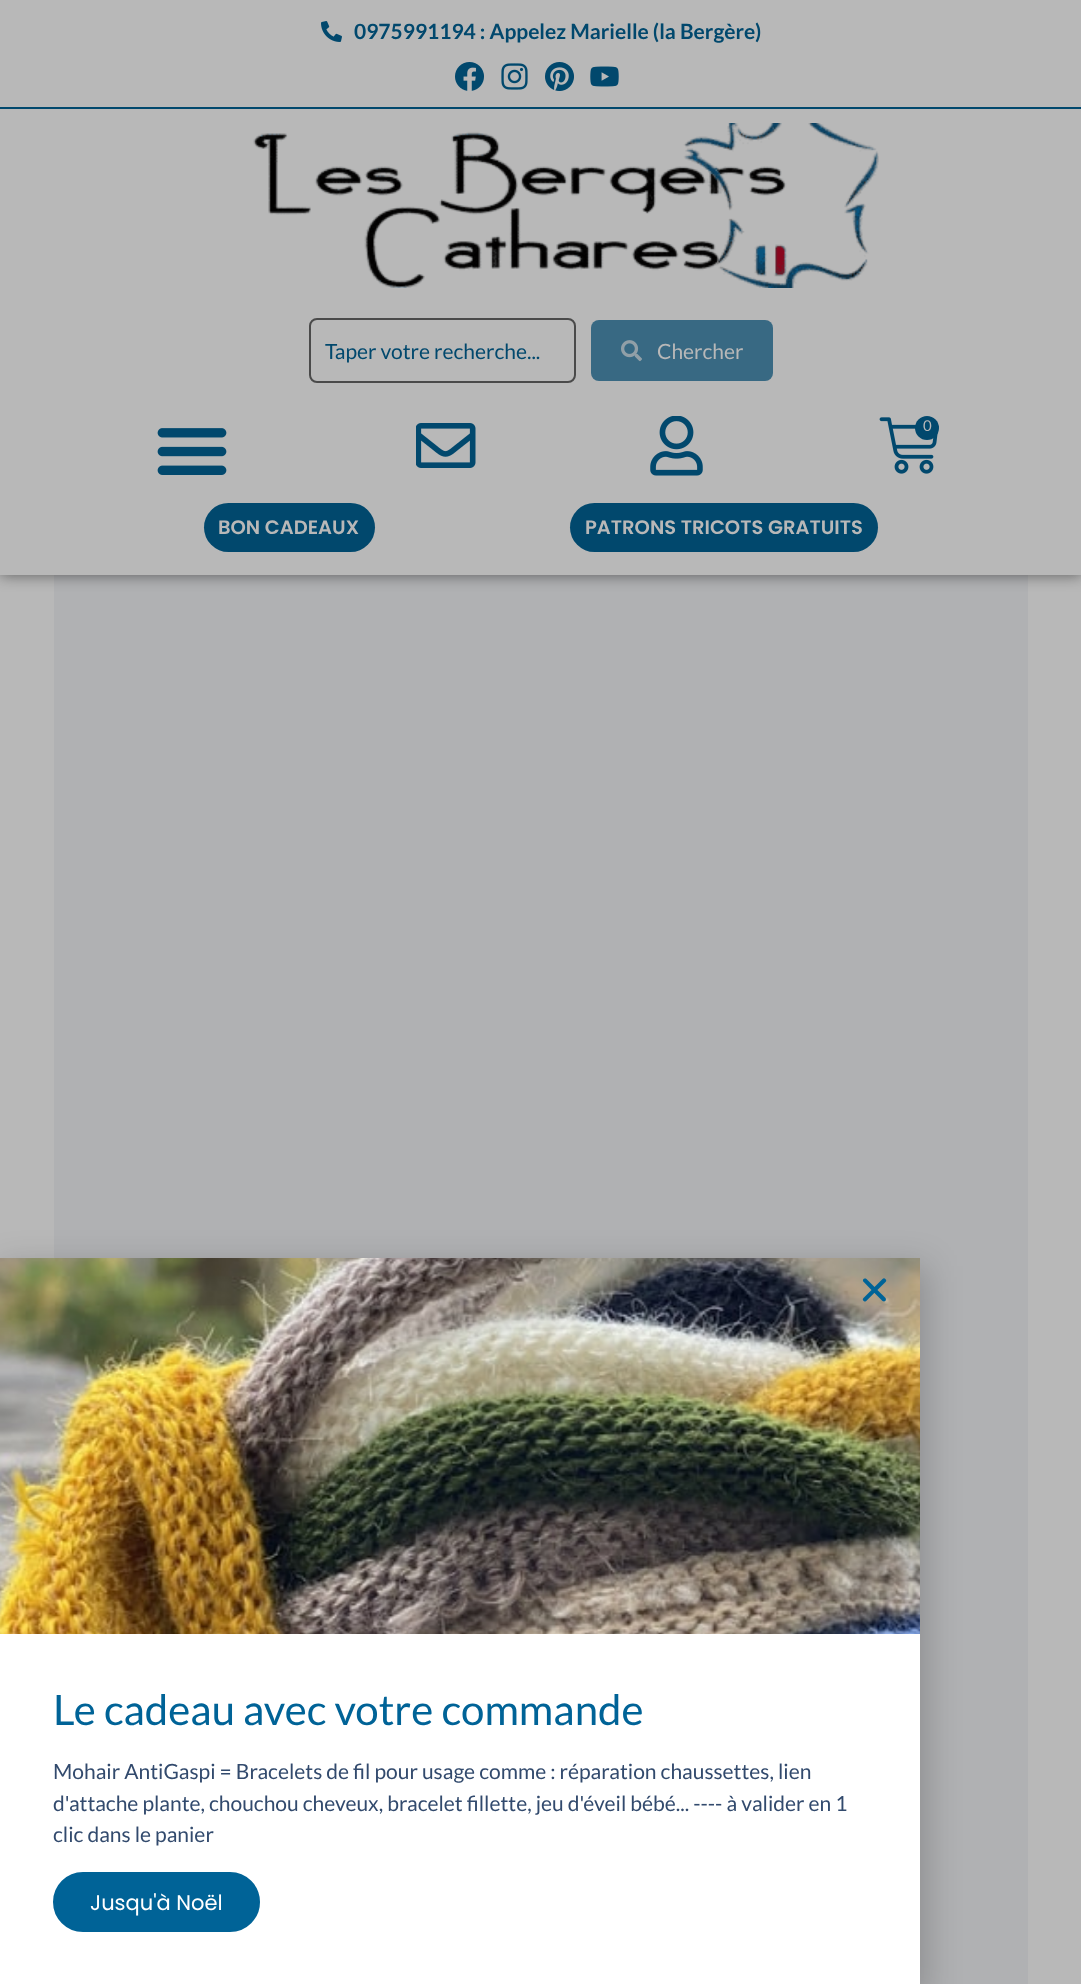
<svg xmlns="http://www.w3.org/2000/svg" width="1081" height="1984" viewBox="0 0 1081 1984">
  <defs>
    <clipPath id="clip1"><path d="M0 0H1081V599H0ZM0 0H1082V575H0Z" clip-rule="evenodd"/></clipPath>
  </defs>
  <rect width="100%" height="100%" fill="rgb(184,184,184)"/>
  <rect x="54" y="575" width="974" height="1409" fill="rgb(176,177,179)"/>
  <g clip-path="url(#clip1)">
    <rect x="0" y="0" width="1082" height="575" fill="rgba(1,0,0,0.5)" filter="blur(7.5px)"/>
  </g>
  <rect x="0" y="107" width="1081" height="2" fill="rgb(1,72,109)"/>
  <image x="321" y="21" width="21" height="21" href="pic1.png"/>
  <text x="354" y="39" font-family="Lato" font-size="21" font-weight="bold" fill="rgb(1,72,109)">0975991194 : Appelez Marielle (la Bergère)</text>
  <image x="455" y="62" width="29" height="29" href="pic2.png"/>
  <image x="501" y="63" width="27" height="27" href="pic3.png"/>
  <image x="545" y="62" width="29" height="29" href="pic4.png"/>
  <image x="590" y="66" width="29" height="21" href="pic5.png"/>
  <image x="253" y="123" width="626" height="165" href="pic6.png"/>
  <rect x="310" y="319" width="265" height="63" rx="7" fill="none" stroke="rgb(74,74,74)" stroke-width="2"/>
  <text x="325" y="359" font-family="Lato" font-size="21" fill="rgb(1,72,109)">Taper votre recherche...</text>
  <rect x="591" y="320" width="182" height="61" rx="8" fill="rgb(56,105,131)"/>
  <image x="621" y="340" width="21" height="22" href="pic7.png"/>
  <text x="657" y="359" font-family="Lato" font-size="21" fill="rgb(184,184,184)">Chercher</text>
  <image x="157" y="428" width="70" height="47" href="pic8.png"/>
  <image x="416" y="423" width="60" height="45" href="pic9.png"/>
  <image x="650" y="416" width="53" height="60" href="pic10.png"/>
  <image x="879" y="417" width="60" height="57" href="pic11.png"/>
  <circle cx="927" cy="428" r="12" fill="rgb(1,72,109)"/>
  <text x="923" y="431" font-family="Lato" font-size="15" fill="rgb(184,184,184)">0</text>
  <rect x="204" y="503" width="171" height="49" rx="24.5" fill="rgb(1,72,109)"/>
  <text x="218" y="534" font-family="Poppins" font-size="19.5" font-weight="600" fill="rgb(184,184,184)">BON CADEAUX</text>
  <rect x="570" y="503" width="308" height="49" rx="24.5" fill="rgb(1,72,109)"/>
  <text x="585" y="534" font-family="Poppins" font-size="19.5" font-weight="600" fill="rgb(184,184,184)">PATRONS TRICOTS GRATUITS</text>
  <rect x="-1" y="1266" width="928" height="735" fill="rgba(0,0,0,0.2)" filter="blur(17px)"/>
  <rect x="0" y="1634" width="920" height="350" fill="rgb(255,255,255)"/>
  <image x="0" y="1258" width="920" height="376" href="pic13.png"/>
  <image x="862" y="1278" width="25" height="24" href="pic12.png"/>
  <text x="53" y="1725" font-family="Lato" font-size="42" fill="rgb(0,99,151)">Le cadeau avec votre commande</text>
  <g font-family="Lato" font-size="21" fill="rgb(50,74,109)">
    <text>
      <tspan x="53" y="1779">Mohair AntiGaspi = Bracelets de fil pour usage comme : réparation chaussettes, lien</tspan>
      <tspan x="53" y="1811">d'attache plante, chouchou cheveux, bracelet fillette, jeu d'éveil bébé... ---- à valider en 1</tspan>
      <tspan x="53" y="1842">clic dans le panier</tspan>
    </text>
  </g>
  <rect x="54" y="1873" width="205" height="58" rx="29" fill="rgb(0,99,151)" stroke="rgb(0,99,151)" stroke-width="2"/>
  <text x="90" y="1910" font-family="Poppins" font-size="21" fill="rgb(255,255,255)">Jusqu'à Noël</text>
</svg>
